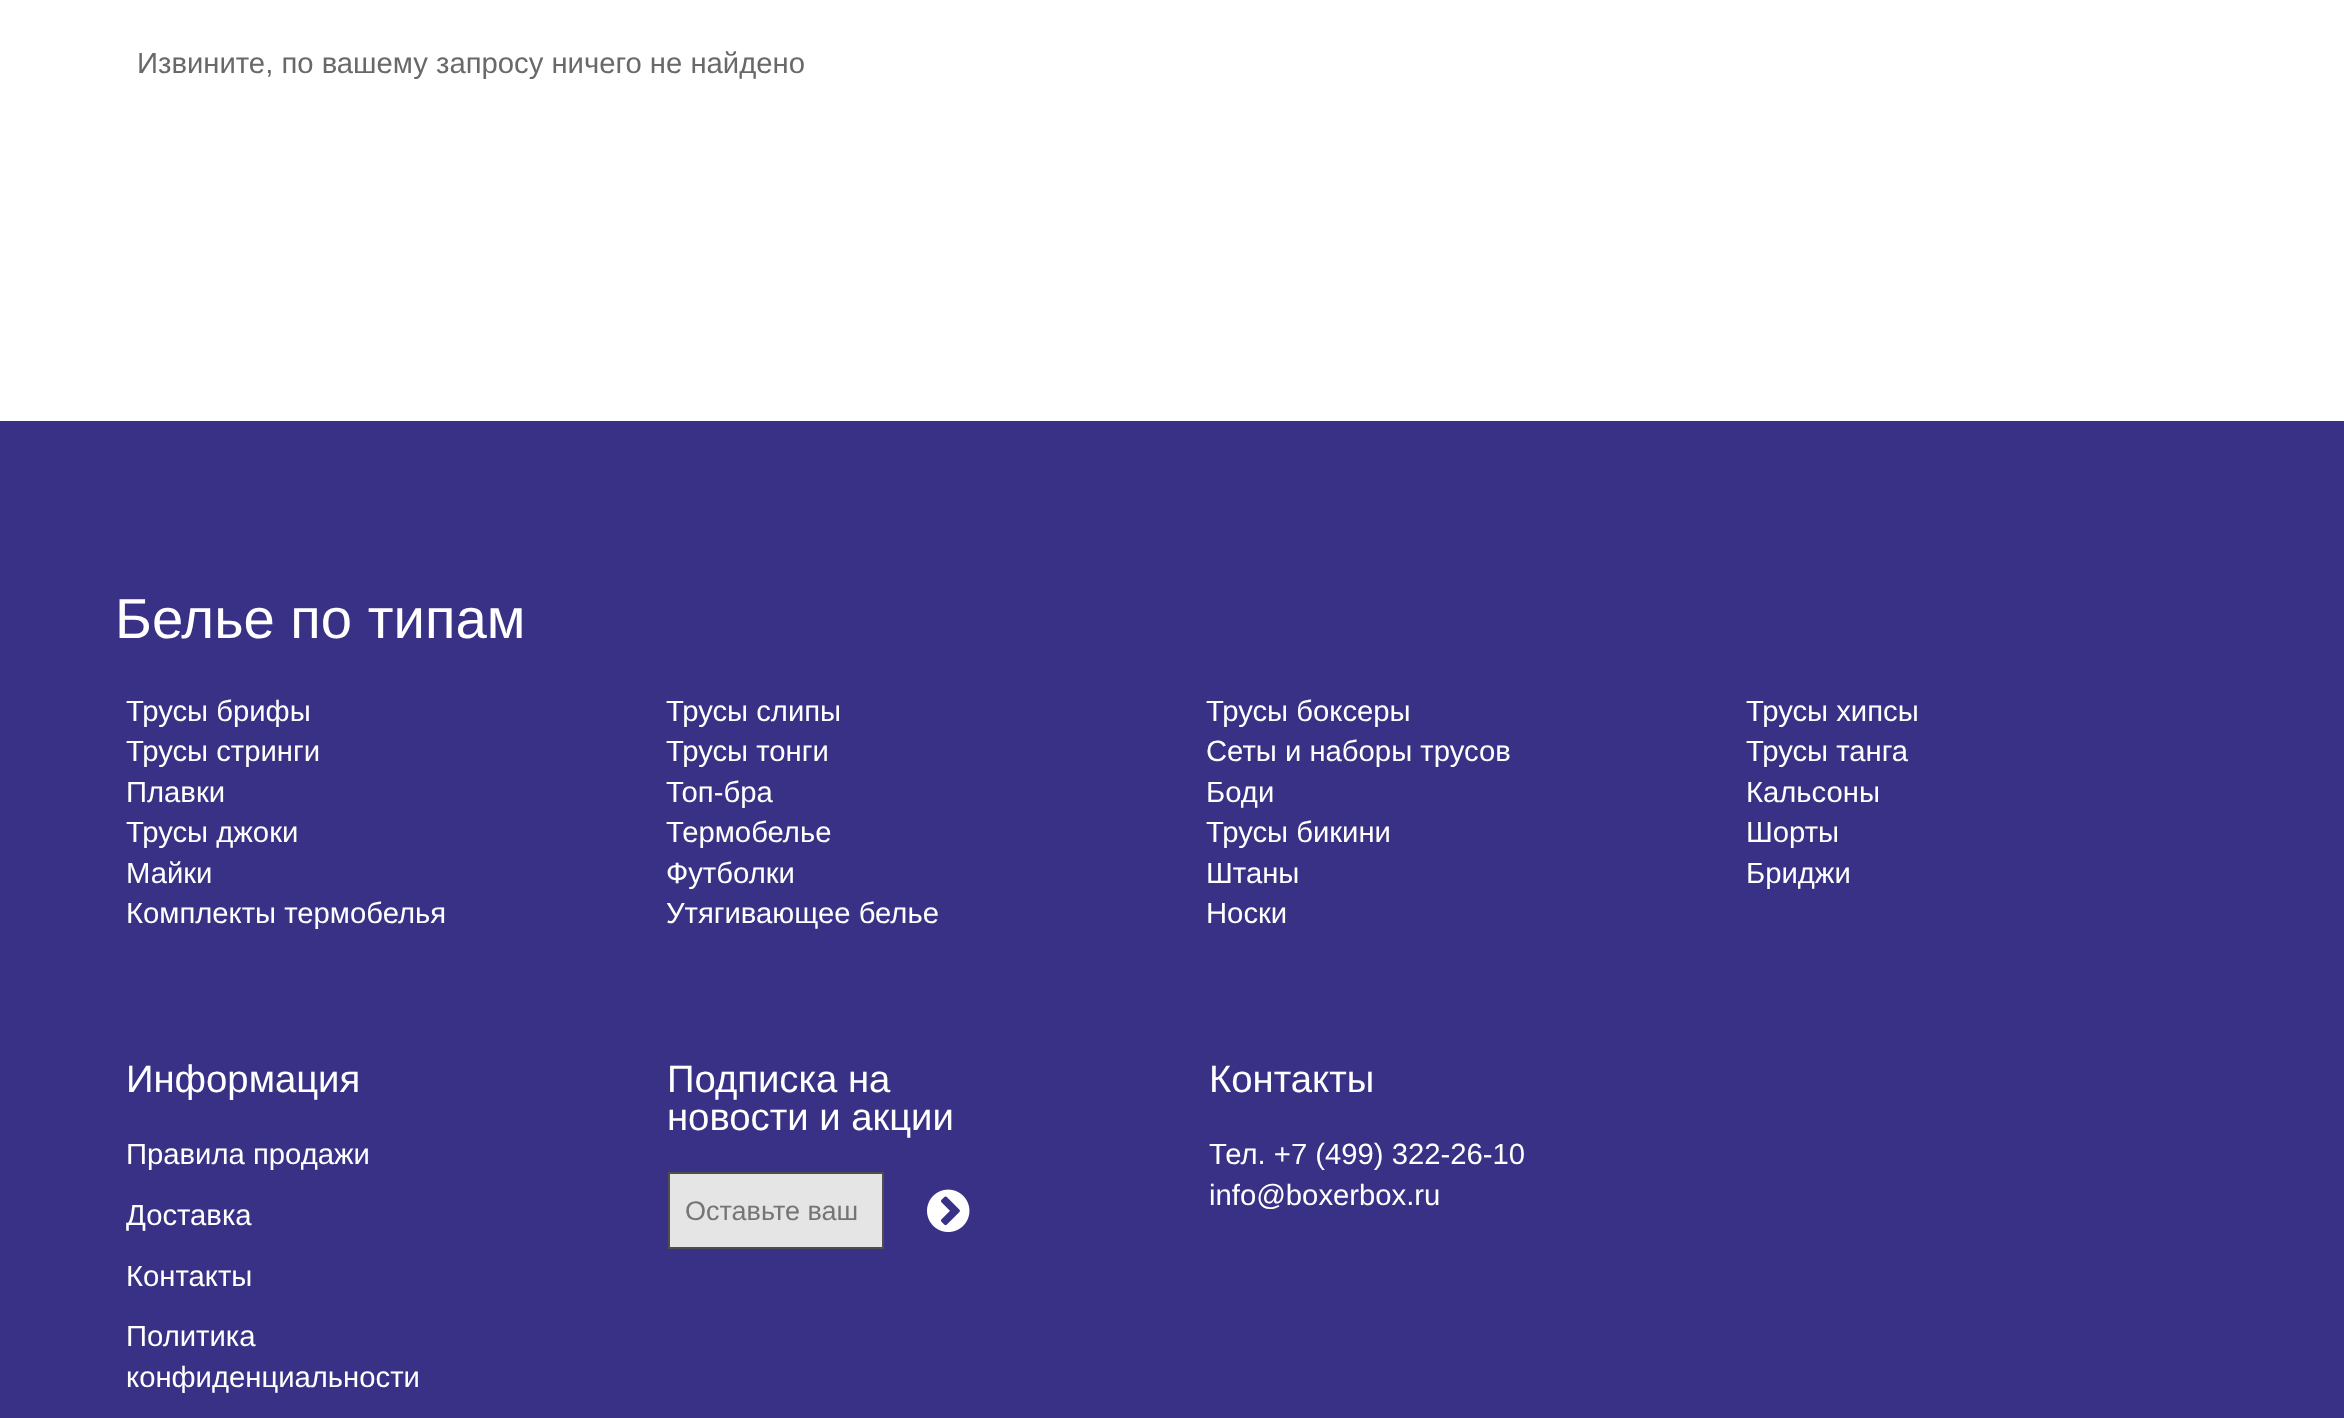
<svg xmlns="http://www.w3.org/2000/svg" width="2344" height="1418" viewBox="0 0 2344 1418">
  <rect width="100%" height="100%" fill="rgb(255,255,255)"/>
  <text x="137" y="73" font-family="Liberation Sans" font-size="29.25" fill="rgb(105,105,105)">Извините, по вашему запросу ничего не найдено</text>
  <rect x="0" y="421" width="2344" height="997" fill="rgb(57,49,133)"/>
  <text x="115" y="638" font-family="Liberation Sans" font-size="56.25" fill="rgb(255,255,255)">Белье по типам</text>
  <g font-family="Liberation Sans" font-size="29.25" fill="rgb(255,255,255)">
    <text x="126" y="721">Трусы брифы</text>
    <text x="666" y="721">Трусы слипы</text>
    <text x="1206" y="721">Трусы боксеры</text>
    <text x="1746" y="721">Трусы хипсы</text>
    <text x="126" y="761">Трусы стринги</text>
    <text x="666" y="761">Трусы тонги</text>
    <text x="1206" y="761">Сеты и наборы трусов</text>
    <text x="1746" y="761">Трусы танга</text>
    <text x="126" y="802">Плавки</text>
    <text x="666" y="802">Топ-бра</text>
    <text x="1206" y="802">Боди</text>
    <text x="1746" y="802">Кальсоны</text>
    <text x="126" y="842">Трусы джоки</text>
    <text x="666" y="842">Термобелье</text>
    <text x="1206" y="842">Трусы бикини</text>
    <text x="1746" y="842">Шорты</text>
    <text x="126" y="883">Майки</text>
    <text x="666" y="883">Футболки</text>
    <text x="1206" y="883">Штаны</text>
    <text x="1746" y="883">Бриджи</text>
    <text x="126" y="923">Комплекты термобелья</text>
    <text x="666" y="923">Утягивающее белье</text>
    <text x="1206" y="923">Носки</text>
  </g>
  <text x="126" y="1092" font-family="Liberation Sans" font-size="38.25" fill="rgb(255,255,255)">Информация</text>
  <g font-family="Liberation Sans" font-size="29.25" fill="rgb(255,255,255)">
    <text x="126" y="1164">Правила продажи</text>
    <text x="126" y="1225">Доставка</text>
    <text x="126" y="1286">Контакты</text>
    <text>
      <tspan x="126" y="1346">Политика</tspan>
      <tspan x="126" y="1387">конфиденциальности</tspan>
    </text>
  </g>
  <g font-family="Liberation Sans" font-size="38.25" fill="rgb(255,255,255)">
    <text>
      <tspan x="667" y="1092">Подписка на</tspan>
      <tspan x="667" y="1130">новости и акции</tspan>
    </text>
  </g>
  <rect x="669" y="1173" width="214" height="75" fill="rgb(229,229,229)" stroke="rgb(78,78,78)" stroke-width="2"/>
  <text x="685" y="1220" font-family="Liberation Sans" font-size="27" fill="rgb(117,117,117)">Оставьте ваш</text>
  <image x="927" y="1189" width="43" height="43" href="pic1.png"/>
  <text x="1209" y="1092" font-family="Liberation Sans" font-size="38.25" fill="rgb(255,255,255)">Контакты</text>
  <g font-family="Liberation Sans" font-size="29.25" fill="rgb(255,255,255)">
    <text>
      <tspan x="1209" y="1164">Тел. +7 (499) 322-26-10</tspan>
      <tspan x="1209" y="1205">info@boxerbox.ru</tspan>
    </text>
  </g>
</svg>
